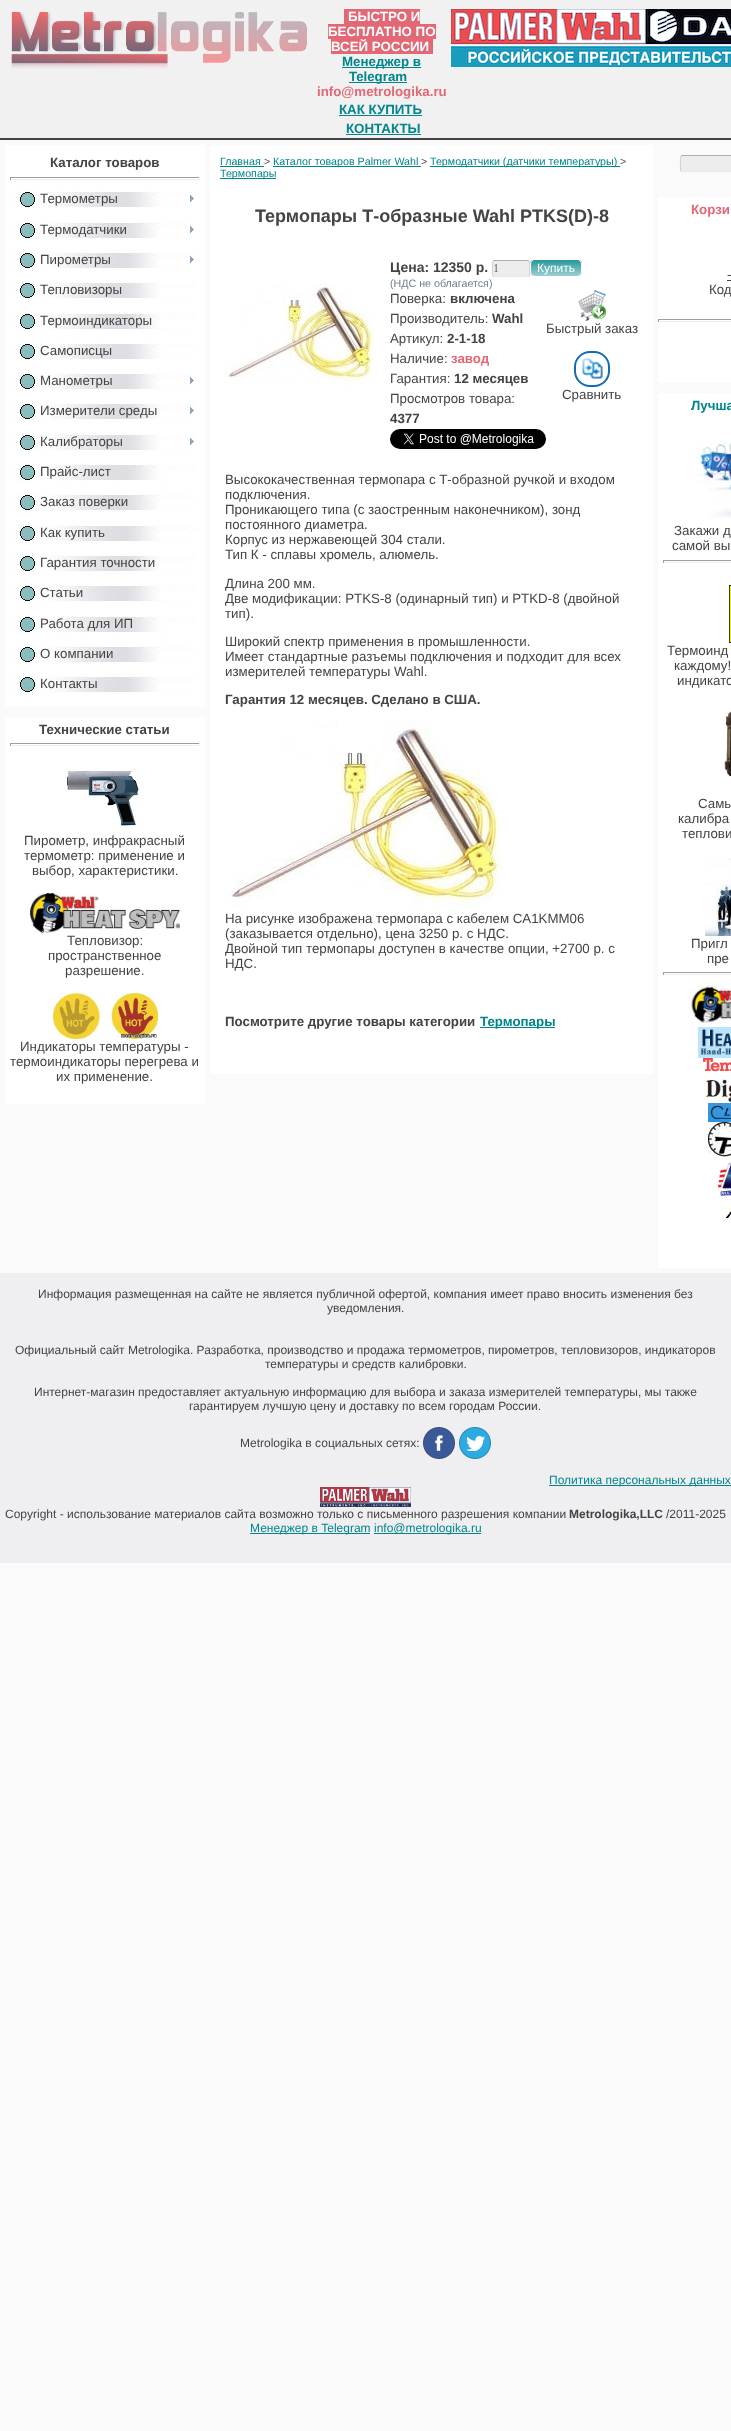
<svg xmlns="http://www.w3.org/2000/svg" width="731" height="2431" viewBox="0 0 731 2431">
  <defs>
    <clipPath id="clip1"><rect x="530" y="259" width="52" height="18" rx="5"/></clipPath>
    <linearGradient id="g1" gradientUnits="userSpaceOnUse" x1="556" y1="260" x2="556" y2="276"><stop offset="0" stop-color="rgb(0,134,139)" stop-opacity="0.86"/><stop offset="1" stop-color="rgb(0,134,139)" stop-opacity="0.38"/></linearGradient>
  </defs>
  <rect width="100%" height="100%" fill="rgb(250,250,250)"/>
  <rect x="0" y="0" width="731" height="138" fill="rgb(241,241,242)"/>
  <rect x="0" y="138" width="731" height="2" fill="rgb(68,68,68)"/>
  <image x="11" y="11" width="296" height="58" href="pic1.png"/>
  <rect x="344" y="9" width="76" height="15" fill="rgb(227,104,117)"/>
  <text x="348" y="21" font-family="Liberation Sans" font-size="13.3" font-weight="bold" fill="rgb(255,255,255)">БЫСТРО И</text>
  <rect x="328" y="24" width="108" height="15" fill="rgb(227,104,117)"/>
  <text x="328" y="36" font-family="Liberation Sans" font-size="13.3" font-weight="bold" fill="rgb(255,255,255)">БЕСПЛАТНО ПО</text>
  <rect x="331" y="39" width="102" height="15" fill="rgb(227,104,117)"/>
  <text x="331" y="51" font-family="Liberation Sans" font-size="13.3" font-weight="bold" fill="rgb(255,255,255)">ВСЕЙ РОССИИ</text>
  <rect x="342" y="67" width="79" height="1" fill="rgb(0,134,139)"/>
  <text x="342" y="66" font-family="Liberation Sans" font-size="13.3" font-weight="bold" fill="rgb(0,134,139)">Менеджер в</text>
  <rect x="349" y="82" width="58" height="1" fill="rgb(0,134,139)"/>
  <text x="349" y="81" font-family="Liberation Sans" font-size="13.3" font-weight="bold" fill="rgb(0,134,139)">Telegram</text>
  <text x="317" y="96" font-family="Liberation Sans" font-size="13.3" font-weight="bold" fill="rgb(227,104,117)">info@metrologika.ru</text>
  <text x="339" y="114" font-family="Liberation Sans" font-size="13.3" font-weight="bold" fill="rgb(0,134,139)">КАК КУПИТЬ</text>
  <rect x="339" y="115" width="83" height="1" fill="rgb(0,134,139)"/>
  <text x="346" y="133" font-family="Liberation Sans" font-size="13.3" font-weight="bold" fill="rgb(0,134,139)">КОНТАКТЫ</text>
  <rect x="346" y="134" width="75" height="1" fill="rgb(0,134,139)"/>
  <image x="451" y="9" width="280" height="58" href="pic2.png"/>
  <rect x="5" y="145" width="200" height="562" fill="rgb(255,255,255)"/>
  <text x="50" y="167" font-family="Liberation Sans" font-size="13.3" font-weight="bold" fill="rgb(68,68,68)">Каталог товаров</text>
  <rect x="10" y="177" width="190" height="1" fill="rgb(159,159,159)"/>
  <rect x="199" y="177" width="1" height="3" fill="rgb(238,238,238)"/>
  <rect x="10" y="179" width="190" height="1" fill="rgb(238,238,238)"/>
  <rect x="10" y="177" width="1" height="3" fill="rgb(159,159,159)"/>
  <image x="10" y="190" width="186" height="19" href="pic3.png"/>
  <text x="40" y="203" font-family="Liberation Sans" font-size="13.3" fill="rgb(68,68,68)">Термометры</text>
  <image x="190" y="195" width="4" height="7" href="pic4.png"/>
  <image x="10" y="221" width="186" height="19" href="pic3.png"/>
  <text x="40" y="234" font-family="Liberation Sans" font-size="13.3" fill="rgb(68,68,68)">Термодатчики</text>
  <image x="190" y="226" width="4" height="7" href="pic4.png"/>
  <image x="10" y="251" width="186" height="19" href="pic3.png"/>
  <text x="40" y="264" font-family="Liberation Sans" font-size="13.3" fill="rgb(68,68,68)">Пирометры</text>
  <image x="190" y="256" width="4" height="7" href="pic4.png"/>
  <image x="10" y="281" width="186" height="19" href="pic3.png"/>
  <text x="40" y="294" font-family="Liberation Sans" font-size="13.3" fill="rgb(68,68,68)">Тепловизоры</text>
  <image x="10" y="312" width="186" height="19" href="pic3.png"/>
  <text x="40" y="325" font-family="Liberation Sans" font-size="13.3" fill="rgb(68,68,68)">Термоиндикаторы</text>
  <image x="10" y="342" width="186" height="19" href="pic3.png"/>
  <text x="40" y="355" font-family="Liberation Sans" font-size="13.3" fill="rgb(68,68,68)">Самописцы</text>
  <image x="10" y="372" width="186" height="19" href="pic3.png"/>
  <text x="40" y="385" font-family="Liberation Sans" font-size="13.3" fill="rgb(68,68,68)">Манометры</text>
  <image x="190" y="377" width="4" height="7" href="pic4.png"/>
  <image x="10" y="402" width="186" height="19" href="pic3.png"/>
  <text x="40" y="415" font-family="Liberation Sans" font-size="13.3" fill="rgb(68,68,68)">Измерители среды</text>
  <image x="190" y="407" width="4" height="7" href="pic4.png"/>
  <image x="10" y="433" width="186" height="19" href="pic3.png"/>
  <text x="40" y="446" font-family="Liberation Sans" font-size="13.3" fill="rgb(68,68,68)">Калибраторы</text>
  <image x="190" y="438" width="4" height="7" href="pic4.png"/>
  <image x="10" y="463" width="186" height="19" href="pic3.png"/>
  <text x="40" y="476" font-family="Liberation Sans" font-size="13.3" fill="rgb(68,68,68)">Прайс-лист</text>
  <image x="10" y="493" width="186" height="19" href="pic3.png"/>
  <text x="40" y="506" font-family="Liberation Sans" font-size="13.3" fill="rgb(68,68,68)">Заказ поверки</text>
  <image x="10" y="524" width="186" height="19" href="pic3.png"/>
  <text x="40" y="537" font-family="Liberation Sans" font-size="13.3" fill="rgb(68,68,68)">Как купить</text>
  <image x="10" y="554" width="186" height="19" href="pic3.png"/>
  <text x="40" y="567" font-family="Liberation Sans" font-size="13.3" fill="rgb(68,68,68)">Гарантия точности</text>
  <image x="10" y="584" width="186" height="19" href="pic3.png"/>
  <text x="40" y="597" font-family="Liberation Sans" font-size="13.3" fill="rgb(68,68,68)">Статьи</text>
  <image x="10" y="615" width="186" height="19" href="pic3.png"/>
  <text x="40" y="628" font-family="Liberation Sans" font-size="13.3" fill="rgb(68,68,68)">Работа для ИП</text>
  <image x="10" y="645" width="186" height="19" href="pic3.png"/>
  <text x="40" y="658" font-family="Liberation Sans" font-size="13.3" fill="rgb(68,68,68)">О компании</text>
  <image x="10" y="675" width="186" height="19" href="pic3.png"/>
  <text x="40" y="688" font-family="Liberation Sans" font-size="13.3" fill="rgb(68,68,68)">Контакты</text>
  <rect x="5" y="717" width="200" height="387" fill="rgb(255,255,255)"/>
  <text x="39" y="734" font-family="Liberation Sans" font-size="13.3" font-weight="bold" fill="rgb(68,68,68)">Технические статьи</text>
  <rect x="10" y="743" width="190" height="1" fill="rgb(159,159,159)"/>
  <rect x="199" y="743" width="1" height="3" fill="rgb(238,238,238)"/>
  <rect x="10" y="745" width="190" height="1" fill="rgb(238,238,238)"/>
  <rect x="10" y="743" width="1" height="3" fill="rgb(159,159,159)"/>
  <image x="64" y="769" width="80" height="64" href="pic5.png"/>
  <g font-family="Liberation Sans" font-size="13.3" fill="rgb(68,68,68)">
    <text>
      <tspan x="24" y="845">Пирометр, инфракрасный</tspan>
      <tspan x="24" y="860">термометр: применение и</tspan>
    </text>
    <text x="32" y="875">выбор, характеристики.</text>
  </g>
  <image x="30" y="893" width="150" height="40" href="pic6.png"/>
  <g font-family="Liberation Sans" font-size="13.3" fill="rgb(68,68,68)">
    <text x="67" y="945">Тепловизор:</text>
    <text x="48" y="960">пространственное</text>
    <text x="65" y="975">разрешение.</text>
  </g>
  <image x="53" y="993" width="105" height="46" href="pic7.png"/>
  <g font-family="Liberation Sans" font-size="13.3" fill="rgb(68,68,68)">
    <text x="20" y="1051">Индикаторы температуры -</text>
    <text x="10" y="1066">термоиндикаторы перегрева и</text>
    <text x="56" y="1081">их применение.</text>
  </g>
  <rect x="210" y="145" width="443" height="929" fill="rgb(255,255,255)"/>
  <text x="220" y="165" font-family="Liberation Sans" font-size="10.7" fill="rgb(0,134,139)">Главная</text>
  <rect x="220" y="166" width="44" height="1" fill="rgb(0,134,139)"/>
  <text x="264" y="165" font-family="Liberation Sans" font-size="10.7" fill="rgb(68,68,68)">&gt;</text>
  <rect x="273" y="166" width="148" height="1" fill="rgb(0,134,139)"/>
  <text x="273" y="165" font-family="Liberation Sans" font-size="10.7" fill="rgb(0,134,139)">Каталог товаров Palmer Wahl</text>
  <text x="421" y="165" font-family="Liberation Sans" font-size="10.7" fill="rgb(68,68,68)">&gt;</text>
  <rect x="430" y="166" width="190" height="1" fill="rgb(0,134,139)"/>
  <text x="430" y="165" font-family="Liberation Sans" font-size="10.7" fill="rgb(0,134,139)">Термодатчики (датчики температуры)</text>
  <text x="620" y="165" font-family="Liberation Sans" font-size="10.7" fill="rgb(68,68,68)">&gt;</text>
  <rect x="220" y="178" width="56" height="1" fill="rgb(0,134,139)"/>
  <text x="220" y="177" font-family="Liberation Sans" font-size="10.7" fill="rgb(0,134,139)">Термопары</text>
  <text x="255" y="222" font-family="Liberation Sans" font-size="18" font-weight="bold" fill="rgb(68,68,68)">Термопары Т-образные Wahl PTKS(D)-8</text>
  <image x="225" y="283" width="150" height="104" href="pic8.png"/>
  <text x="390" y="272" font-family="Liberation Sans" font-size="14" font-weight="bold" fill="rgb(68,68,68)">Цена: 12350 р.</text>
  <rect x="492" y="261" width="38" height="16" fill="rgb(237,237,237)"/>
  <path d="M493 261C493.5 261 494.5 260.5 495 260.5H527C527.5 260.5 528.5 261 529 261" fill="none" stroke="rgb(172,172,172)"/>
  <path d="M529 261C530 262.5 529.5 267 529.5 268.5C529.5 270 530 274.5 529 276" fill="none" stroke="rgb(208,208,208)"/>
  <path d="M529 276C528.5 276 527.5 276.5 527 276.5H495C494.5 276.5 493.5 276 493 276" fill="none" stroke="rgb(233,233,233)"/>
  <path d="M493 276C492 274.5 492.5 270 492.5 268.5C492.5 267 492 262.5 493 261" fill="none" stroke="rgb(208,208,208)"/>
  <text x="493" y="272" font-family="Liberation Serif" font-size="12" fill="rgb(104,104,104)">1</text>
  <g clip-path="url(#clip1)">
    <rect x="530" y="260" width="52" height="16" fill="url(#g1)"/>
  </g>
  <rect x="530.5" y="259.5" width="51" height="17" rx="4.5" fill="none" stroke="rgb(255,255,255)"/>
  <text x="537" y="272" font-family="Liberation Sans" font-size="12" fill="rgb(255,255,255)">Купить</text>
  <text x="390" y="287" font-family="Liberation Sans" font-size="10.7" fill="rgb(112,128,144)">(НДС не облагается)</text>
  <text x="390" y="303" font-family="Liberation Sans" font-size="13.3" fill="rgb(68,68,68)">Поверка:</text>
  <text x="450" y="303" font-family="Liberation Sans" font-size="13.3" font-weight="bold" fill="rgb(68,68,68)">включена</text>
  <text x="390" y="323" font-family="Liberation Sans" font-size="13.3" fill="rgb(68,68,68)">Производитель:</text>
  <text x="492" y="323" font-family="Liberation Sans" font-size="13.3" font-weight="bold" fill="rgb(68,68,68)">Wahl</text>
  <text x="390" y="343" font-family="Liberation Sans" font-size="13.3" fill="rgb(68,68,68)">Артикул:</text>
  <text x="447" y="343" font-family="Liberation Sans" font-size="13.3" font-weight="bold" fill="rgb(68,68,68)">2-1-18</text>
  <text x="390" y="363" font-family="Liberation Sans" font-size="13.3" fill="rgb(68,68,68)">Наличие:</text>
  <text x="451" y="363" font-family="Liberation Sans" font-size="13.3" font-weight="bold" fill="rgb(227,104,117)">завод</text>
  <text x="390" y="383" font-family="Liberation Sans" font-size="13.3" fill="rgb(68,68,68)">Гарантия:</text>
  <text x="454" y="383" font-family="Liberation Sans" font-size="13.3" font-weight="bold" fill="rgb(68,68,68)">12 месяцев</text>
  <text x="390" y="403" font-family="Liberation Sans" font-size="13.3" fill="rgb(68,68,68)">Просмотров товара:</text>
  <text x="390" y="423" font-family="Liberation Sans" font-size="13.3" font-weight="bold" fill="rgb(68,68,68)">4377</text>
  <image x="390" y="429" width="156" height="20" href="pic9.png"/>
  <image x="578" y="290" width="28" height="31" href="pic10.png"/>
  <text x="546" y="333" font-family="Liberation Sans" font-size="13.3" fill="rgb(68,68,68)">Быстрый заказ</text>
  <rect x="575" y="352" width="34" height="34" rx="15" fill="none" stroke="rgb(19,107,179)" stroke-width="2"/>
  <image x="582" y="358" width="21" height="21" href="pic11.png"/>
  <g font-family="Liberation Sans" font-size="13.3" fill="rgb(68,68,68)">
    <text x="562" y="399">Сравнить</text>
    <text>
      <tspan x="225" y="484">Высококачественная термопара с Т-образной ручкой и входом</tspan>
      <tspan x="225" y="499">подключения.</tspan>
      <tspan x="225" y="514">Проникающего типа (с заостренным наконечником), зонд</tspan>
      <tspan x="225" y="529">постоянного диаметра.</tspan>
      <tspan x="225" y="544">Корпус из нержавеющей 304 стали.</tspan>
      <tspan x="225" y="559">Тип К - сплавы хромель, алюмель.</tspan>
    </text>
    <text>
      <tspan x="225" y="588">Длина 200 мм.</tspan>
      <tspan x="225" y="603">Две модификации: PTKS-8 (одинарный тип) и PTKD-8 (двойной</tspan>
      <tspan x="225" y="618">тип).</tspan>
    </text>
    <text>
      <tspan x="225" y="646">Широкий спектр применения в промышленности.</tspan>
      <tspan x="225" y="661">Имеет стандартные разъемы подключения и подходит для всех</tspan>
      <tspan x="225" y="676">измерителей температуры Wahl.</tspan>
    </text>
  </g>
  <text x="225" y="704" font-family="Liberation Sans" font-size="13.3" font-weight="bold" fill="rgb(68,68,68)">Гарантия 12 месяцев. Сделано в США.</text>
  <image x="225" y="721" width="280" height="190" href="pic12.png"/>
  <g font-family="Liberation Sans" font-size="13.3" fill="rgb(68,68,68)">
    <text>
      <tspan x="225" y="923">На рисунке изображена термопара с кабелем CA1KMM06</tspan>
      <tspan x="225" y="938">(заказывается отдельно), цена 3250 р. с НДС.</tspan>
      <tspan x="225" y="953">Двойной тип термопары доступен в качестве опции, +2700 р. с</tspan>
      <tspan x="225" y="968">НДС.</tspan>
    </text>
  </g>
  <text x="225" y="1026" font-family="Liberation Sans" font-size="13.3" font-weight="bold" fill="rgb(68,68,68)">Посмотрите другие товары категории</text>
  <rect x="480" y="1027" width="75" height="1" fill="rgb(0,134,139)"/>
  <text x="480" y="1026" font-family="Liberation Sans" font-size="13.3" font-weight="bold" fill="rgb(0,134,139)">Термопары</text>
  <rect x="680" y="156" width="51" height="16" fill="rgb(237,237,237)"/>
  <path d="M681 156L683 155.5H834L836 156" fill="none" stroke="rgb(172,172,172)"/>
  <path d="M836 171L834 171.5H683L681 171" fill="none" stroke="rgb(233,233,233)"/>
  <path d="M681 171C680 169.5 680.5 165 680.5 163.5C680.5 162 680 157.5 681 156" fill="none" stroke="rgb(208,208,208)"/>
  <rect x="658" y="197" width="73" height="186" fill="rgb(255,255,255)"/>
  <text x="691" y="214" font-family="Liberation Sans" font-size="13.3" font-weight="bold" fill="rgb(227,104,117)">Корзи</text>
  <text x="727" y="279" font-family="Liberation Sans" font-size="13.3" fill="rgb(68,68,68)">-</text>
  <rect x="727" y="280" width="4" height="1" fill="rgb(68,68,68)"/>
  <text x="709" y="294" font-family="Liberation Sans" font-size="13.3" fill="rgb(68,68,68)">Код</text>
  <rect x="658" y="319" width="73" height="1" fill="rgb(159,159,159)"/>
  <rect x="658" y="321" width="73" height="1" fill="rgb(238,238,238)"/>
  <rect x="658" y="319" width="1" height="3" fill="rgb(159,159,159)"/>
  <rect x="658" y="393" width="73" height="875" fill="rgb(255,255,255)"/>
  <text x="691" y="410" font-family="Liberation Sans" font-size="13.3" font-weight="bold" fill="rgb(0,134,139)">Лучша</text>
  <image x="695" y="440" width="36" height="78" href="pic13.png"/>
  <g font-family="Liberation Sans" font-size="13.3" fill="rgb(68,68,68)">
    <text x="674" y="535">Закажи д</text>
    <text x="672" y="550">самой вы</text>
  </g>
  <rect x="663" y="560" width="68" height="1" fill="rgb(159,159,159)"/>
  <rect x="663" y="562" width="68" height="1" fill="rgb(238,238,238)"/>
  <rect x="663" y="560" width="1" height="3" fill="rgb(159,159,159)"/>
  <image x="729" y="585" width="2" height="58" href="pic14.png"/>
  <g font-family="Liberation Sans" font-size="13.3" fill="rgb(68,68,68)">
    <text x="667" y="655">Термоинд</text>
    <text x="674" y="670">каждому!</text>
    <text x="677" y="685">индикато</text>
  </g>
  <image x="722" y="711" width="9" height="66" href="pic15.png"/>
  <g font-family="Liberation Sans" font-size="13.3" fill="rgb(68,68,68)">
    <text x="698" y="808">Самы</text>
    <text x="678" y="823">калибра</text>
    <text x="682" y="838">теплови</text>
  </g>
  <image x="705" y="858" width="26" height="78" href="pic16.png"/>
  <g font-family="Liberation Sans" font-size="13.3" fill="rgb(68,68,68)">
    <text x="691" y="948">Пригл</text>
    <text x="707" y="963">пре</text>
  </g>
  <rect x="663" y="972" width="68" height="1" fill="rgb(159,159,159)"/>
  <rect x="663" y="974" width="68" height="1" fill="rgb(238,238,238)"/>
  <rect x="663" y="972" width="1" height="3" fill="rgb(159,159,159)"/>
  <image x="688" y="982" width="43" height="44" href="pic17.png"/>
  <image x="698" y="1027" width="33" height="31" href="pic18.png"/>
  <image x="703" y="1058" width="28" height="14" href="pic19.png"/>
  <image x="703" y="1075" width="28" height="28" href="pic20.png"/>
  <image x="708" y="1103" width="23" height="19" href="pic21.png"/>
  <image x="708" y="1122" width="23" height="35" href="pic22.png"/>
  <image x="718" y="1162" width="13" height="34" href="pic23.png"/>
  <image x="721" y="1199" width="10" height="25" href="pic24.png"/>
  <rect x="0" y="1273" width="731" height="290" fill="rgb(239,239,241)"/>
  <g font-family="Liberation Sans" font-size="12" fill="rgb(68,68,68)">
    <text x="38" y="1298">Информация размещенная на сайте не является публичной офертой, компания имеет право вносить изменения без</text>
    <text x="327" y="1312">уведомления.</text>
    <text x="15" y="1354">Официальный сайт Metrologika. Разработка, производство и продажа термометров, пирометров, тепловизоров, индикаторов</text>
    <text x="265" y="1368">температуры и средств калибровки.</text>
    <text x="34" y="1396">Интернет-магазин предоставляет актуальную информацию для выбора и заказа измерителей температуры, мы также</text>
    <text x="189" y="1410">гарантируем лучшую цену и доставку по всем городам России.</text>
    <text x="240" y="1447">Metrologika в социальных сетях:</text>
  </g>
  <image x="423" y="1427" width="32" height="32" href="pic25.png"/>
  <image x="459" y="1427" width="32" height="32" href="pic26.png"/>
  <rect x="549" y="1485" width="182" height="1" fill="rgb(0,134,139)"/>
  <text x="549" y="1484" font-family="Liberation Sans" font-size="12" fill="rgb(0,134,139)">Политика персональных данных</text>
  <image x="320" y="1487" width="49" height="20" href="pic27.png"/>
  <image x="369" y="1487" width="42" height="20" href="pic28.png"/>
  <text x="5" y="1518" font-family="Liberation Sans" font-size="12" fill="rgb(68,68,68)">Copyright - использование материалов сайта возможно только с письменного разрешения компании</text>
  <text x="569" y="1518" font-family="Liberation Sans" font-size="12" font-weight="bold" fill="rgb(68,68,68)">Metrologika,LLC</text>
  <text x="666" y="1518" font-family="Liberation Sans" font-size="12" fill="rgb(68,68,68)">/2011-2025</text>
  <rect x="250" y="1533" width="120" height="1" fill="rgb(0,134,139)"/>
  <text x="250" y="1532" font-family="Liberation Sans" font-size="12" fill="rgb(0,134,139)">Менеджер в Telegram</text>
  <rect x="374" y="1533" width="107" height="1" fill="rgb(0,134,139)"/>
  <text x="374" y="1532" font-family="Liberation Sans" font-size="12" fill="rgb(0,134,139)">info@metrologika.ru</text>
</svg>
